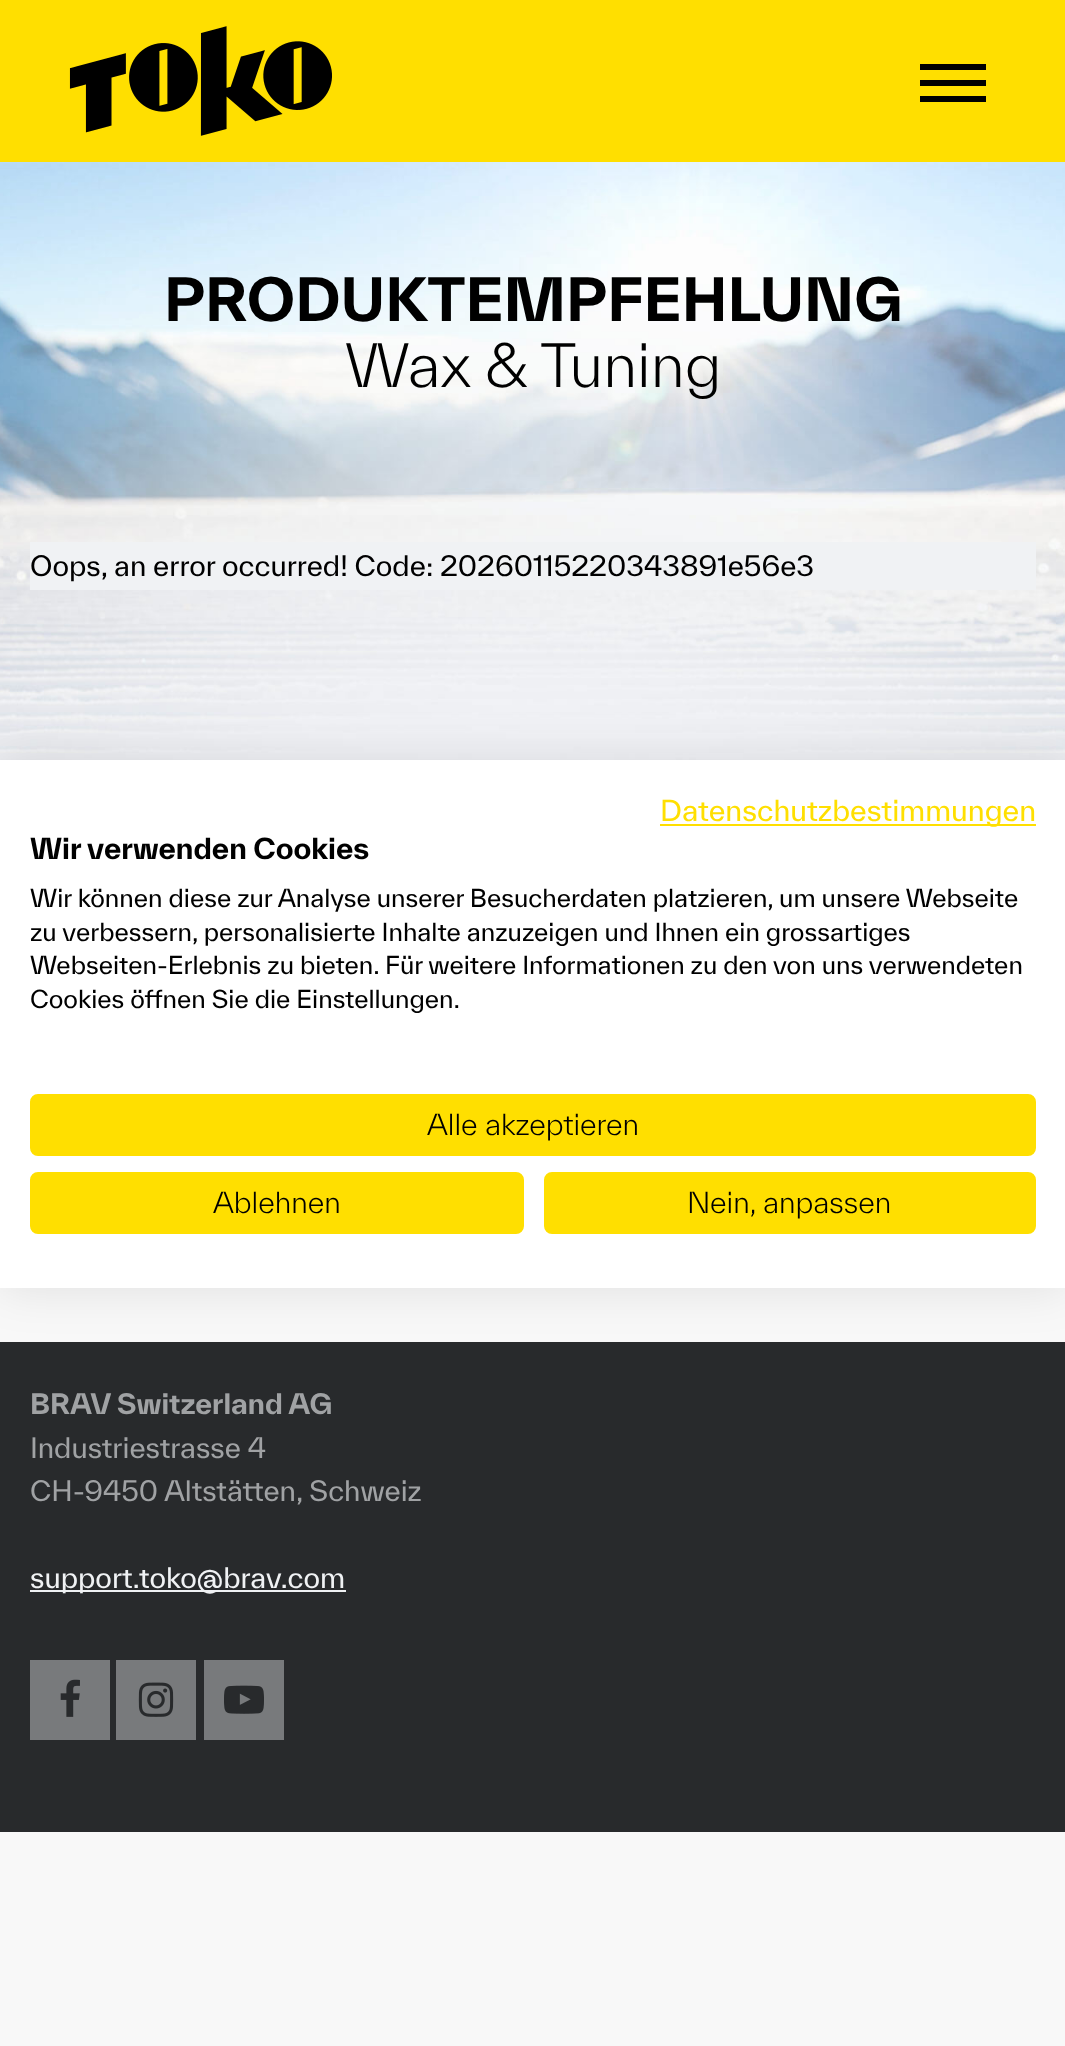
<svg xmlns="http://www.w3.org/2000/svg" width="1065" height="2046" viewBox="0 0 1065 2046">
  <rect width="100%" height="100%" fill="rgb(248,248,248)"/>
  <image x="0" y="162" width="1065" height="598" href="pic1.png"/>
  <rect x="0" y="0" width="1065" height="162" fill="rgb(255,223,0)"/>
  <image x="69" y="26" width="263" height="110" href="pic2.png"/>
  <rect x="920" y="64" width="66" height="6" fill="rgb(0,0,0)"/>
  <rect x="920" y="80" width="66" height="6" fill="rgb(0,0,0)"/>
  <rect x="920" y="96" width="66" height="6" fill="rgb(0,0,0)"/>
  <text x="164" y="321" font-family="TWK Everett" font-size="57.6" font-weight="bold" fill="rgb(0,0,0)">PRODUKTEMPFEHLUNG</text>
  <text x="345" y="387" font-family="TWK Everett" font-size="57.6" font-weight="300" fill="rgb(0,0,0)">Wax &amp; Tuning</text>
  <rect x="30" y="542" width="1006" height="48" fill="rgb(240,242,244)"/>
  <text x="30" y="576" font-family="TWK Everett" font-size="27.2" fill="rgb(0,0,0)">Oops, an error occurred! Code: 20260115220343891e56e3</text>
  <rect x="0" y="1342" width="1065" height="490" fill="rgb(40,42,44)"/>
  <text x="30" y="1414" font-family="TWK Everett" font-size="27.2" font-weight="bold" fill="rgb(160,162,164)">BRAV Switzerland AG</text>
  <g font-family="TWK Everett" font-size="27.2" fill="rgb(160,162,164)">
    <text>
      <tspan x="30" y="1458">Industriestrasse 4</tspan>
      <tspan x="30" y="1501">CH-9450 Altstätten, Schweiz</tspan>
    </text>
  </g>
  <rect x="30" y="1590" width="316" height="2" fill="rgb(240,242,244)"/>
  <text x="30" y="1588" font-family="TWK Everett" font-size="27.2" fill="rgb(240,242,244)">support.toko@brav.com</text>
  <rect x="30" y="1660" width="80" height="80" fill="rgb(120,122,124)"/>
  <image x="60" y="1679" width="20" height="38" href="pic3.png"/>
  <rect x="116" y="1660" width="80" height="80" fill="rgb(120,122,124)"/>
  <image x="138" y="1682" width="36" height="35" href="pic4.png"/>
  <rect x="204" y="1660" width="80" height="80" fill="rgb(120,122,124)"/>
  <image x="224" y="1685" width="40" height="29" href="pic5.png"/>
  <rect x="0" y="760" width="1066" height="528" fill="rgba(0,0,0,0.1)" filter="blur(24px)"/>
  <rect x="0" y="760" width="1065" height="528" fill="rgb(255,255,255)"/>
  <rect x="660" y="824" width="376" height="2" fill="rgb(255,223,0)"/>
  <text x="660" y="821" font-family="TWK Everett" font-size="28" fill="rgb(255,223,0)">Datenschutzbestimmungen</text>
  <text x="30" y="859" font-family="TWK Everett" font-size="28" font-weight="bold" fill="rgb(0,0,0)">Wir verwenden Cookies</text>
  <g font-family="TWK Everett" font-size="24" fill="rgb(0,0,0)">
    <text>
      <tspan x="30" y="907">Wir können diese zur Analyse unserer Besucherdaten platzieren, um unsere Webseite</tspan>
      <tspan x="30" y="941">zu verbessern, personalisierte Inhalte anzuzeigen und Ihnen ein grossartiges</tspan>
      <tspan x="30" y="974">Webseiten-Erlebnis zu bieten. Für weitere Informationen zu den von uns verwendeten</tspan>
      <tspan x="30" y="1008">Cookies öffnen Sie die Einstellungen.</tspan>
    </text>
  </g>
  <rect x="31" y="1095" width="1004" height="60" rx="7" fill="rgb(255,223,0)" stroke="rgb(255,223,0)" stroke-width="2"/>
  <text x="427" y="1135" font-family="TWK Everett" font-size="28" font-weight="300" fill="rgb(0,0,0)">Alle akzeptieren</text>
  <rect x="31" y="1173" width="492" height="60" rx="7" fill="rgb(255,223,0)" stroke="rgb(255,223,0)" stroke-width="2"/>
  <text x="213" y="1213" font-family="TWK Everett" font-size="28" font-weight="300" fill="rgb(0,0,0)">Ablehnen</text>
  <rect x="545" y="1173" width="490" height="60" rx="7" fill="rgb(255,223,0)" stroke="rgb(255,223,0)" stroke-width="2"/>
  <text x="687" y="1213" font-family="TWK Everett" font-size="28" font-weight="300" fill="rgb(0,0,0)">Nein, anpassen</text>
</svg>
